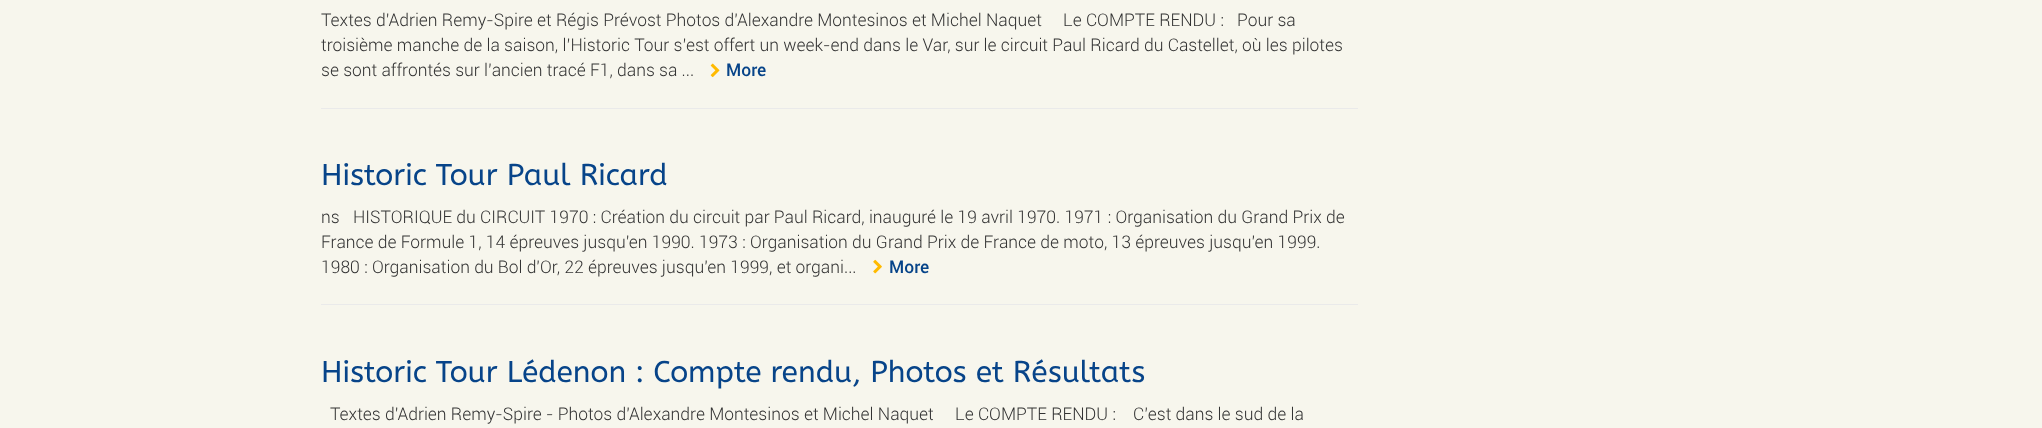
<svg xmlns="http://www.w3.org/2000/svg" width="2042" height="428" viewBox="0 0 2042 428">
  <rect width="100%" height="100%" fill="rgb(247,246,237)"/>
  <g font-family="Roboto" font-size="17.5" font-weight="300" fill="rgb(51,51,51)">
    <text x="321" y="26">Textes d'Adrien Remy-Spire et Régis Prévost Photos d'Alexandre Montesinos et Michel Naquet</text>
    <text x="1063" y="26">Le COMPTE RENDU :</text>
    <text x="1237" y="26">Pour sa</text>
    <text>
      <tspan x="321" y="51">troisième manche de la saison, l’Historic Tour s’est offert un week-end dans le Var, sur le circuit Paul Ricard du Castellet, où les pilotes</tspan>
      <tspan x="321" y="76">se sont affrontés sur l’ancien tracé F1, dans sa ...</tspan>
    </text>
  </g>
  <image x="710" y="63" width="10" height="15" href="pic1.png"/>
  <text x="726" y="76" font-family="Roboto" font-size="17.5" font-weight="500" fill="rgb(7,68,137)">More</text>
  <rect x="321" y="108" width="1037" height="1" fill="rgb(234,234,234)"/>
  <text x="321" y="185" font-family="ABeeZee" font-size="30" fill="rgb(7,68,137)">Historic Tour Paul Ricard</text>
  <g font-family="Roboto" font-size="17.5" font-weight="300" fill="rgb(51,51,51)">
    <text x="321" y="223">ns</text>
    <text x="353" y="223">HISTORIQUE du CIRCUIT 1970 : Création du circuit par Paul Ricard, inauguré le 19 avril 1970. 1971 : Organisation du Grand Prix de</text>
    <text>
      <tspan x="321" y="248">France de Formule 1, 14 épreuves jusqu'en 1990. 1973 : Organisation du Grand Prix de France de moto, 13 épreuves jusqu'en 1999.</tspan>
      <tspan x="321" y="273">1980 : Organisation du Bol d'Or, 22 épreuves jusqu'en 1999, et organi...</tspan>
    </text>
  </g>
  <image x="873" y="259" width="9" height="15" href="pic2.png"/>
  <text x="889" y="273" font-family="Roboto" font-size="17.5" font-weight="500" fill="rgb(7,68,137)">More</text>
  <rect x="321" y="304" width="1037" height="1" fill="rgb(234,234,234)"/>
  <text x="321" y="382" font-family="ABeeZee" font-size="30" fill="rgb(7,68,137)">Historic Tour Lédenon : Compte rendu, Photos et Résultats</text>
  <g font-family="Roboto" font-size="17.5" font-weight="300" fill="rgb(51,51,51)">
    <text x="330" y="420">Textes d'Adrien Remy-Spire - Photos d'Alexandre Montesinos et Michel Naquet</text>
    <text x="955" y="420">Le COMPTE RENDU :</text>
    <text x="1133" y="420">C’est dans le sud de la</text>
  </g>
</svg>
